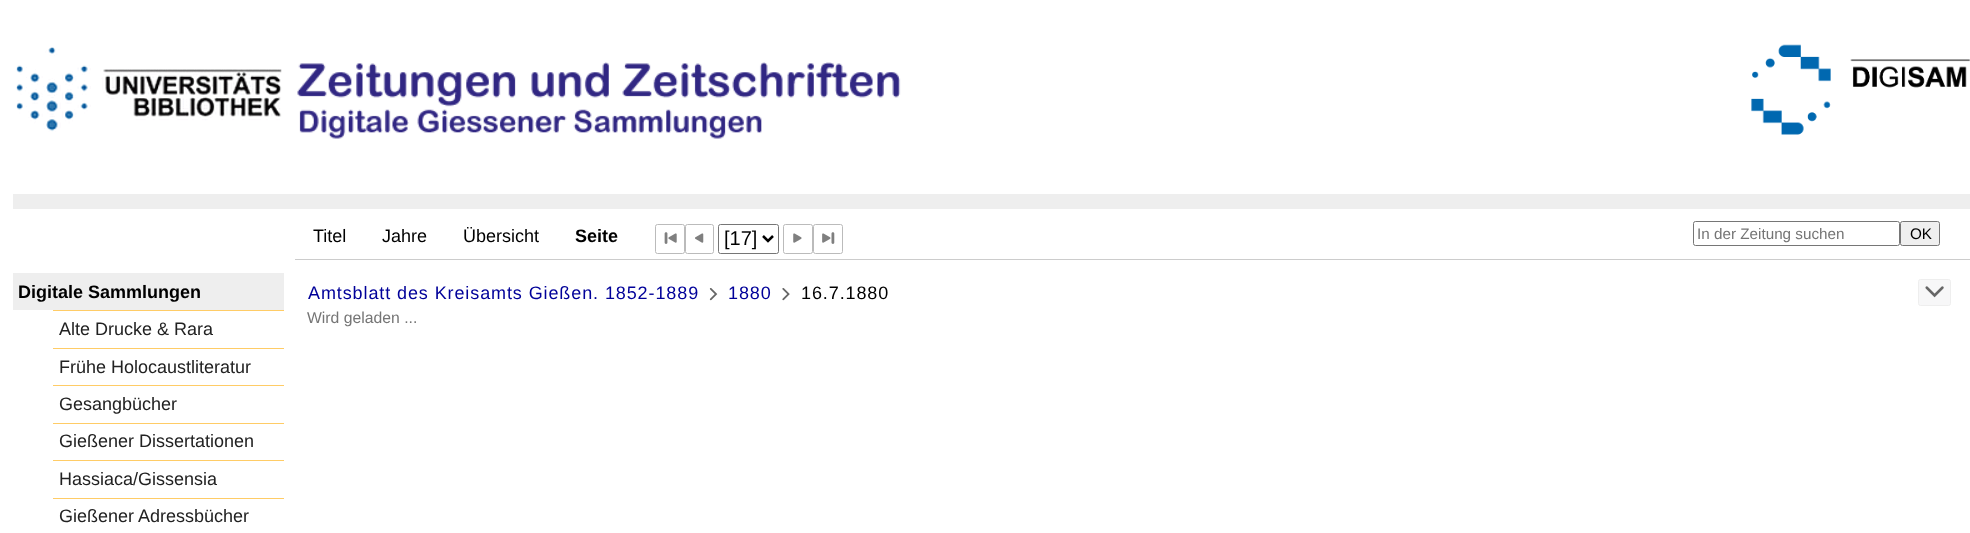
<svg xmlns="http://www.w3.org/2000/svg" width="1970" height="533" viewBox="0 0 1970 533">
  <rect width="100%" height="100%" fill="rgb(255,255,255)"/>
  <rect x="13" y="194" width="1957" height="15" fill="rgb(238,238,238)"/>
  <image x="16" y="47" width="266" height="85" href="pic1.png"/>
  <image x="297" y="62" width="604" height="77" href="pic2.png"/>
  <image x="1751" y="44" width="219" height="91" href="pic3.png"/>
  <rect x="295" y="259" width="1675" height="1" fill="rgb(204,204,204)"/>
  <g font-family="Liberation Sans" font-size="18" fill="rgb(0,0,0)">
    <text x="313" y="242">Titel</text>
    <text x="382" y="242">Jahre</text>
    <text x="463" y="242">Übersicht</text>
  </g>
  <text x="575" y="242" font-family="Liberation Sans" font-size="18" font-weight="bold" fill="rgb(0,0,0)">Seite</text>
  <rect x="655.5" y="224.5" width="29" height="29" rx="2" fill="none" stroke="rgb(187,187,187)"/>
  <image x="664" y="232" width="13" height="12" href="pic4.png"/>
  <rect x="685.5" y="224.5" width="28" height="29" rx="2" fill="none" stroke="rgb(187,187,187)"/>
  <image x="695" y="233" width="9" height="10" href="pic5.png"/>
  <rect x="718.5" y="224.5" width="60" height="29" rx="2" fill="none" stroke="rgb(118,118,118)"/>
  <path d="M763 236L768 241L773 236" fill="none" stroke="rgb(0,0,0)" stroke-width="2.5"/>
  <text x="724" y="245" font-family="Liberation Sans" font-size="20" fill="rgb(0,0,0)">[17]</text>
  <rect x="783.5" y="224.5" width="29" height="29" rx="2" fill="none" stroke="rgb(187,187,187)"/>
  <image x="793" y="233" width="9" height="10" href="pic6.png"/>
  <rect x="813.5" y="224.5" width="29" height="29" rx="2" fill="none" stroke="rgb(187,187,187)"/>
  <image x="822" y="232" width="13" height="12" href="pic7.png"/>
  <rect x="1693.5" y="221.5" width="206" height="24" rx="2" fill="none" stroke="rgb(118,118,118)"/>
  <text x="1697" y="239" font-family="Liberation Sans" font-size="15.25" fill="rgb(117,117,117)">In der Zeitung suchen</text>
  <rect x="1900.5" y="221.5" width="39" height="24" rx="2" fill="rgb(239,239,239)" stroke="rgb(118,118,118)"/>
  <text x="1910" y="239" font-family="Liberation Sans" font-size="15.25" fill="rgb(0,0,0)">OK</text>
  <rect x="13" y="273" width="271" height="37" fill="rgb(238,238,238)"/>
  <text x="18" y="298" font-family="Liberation Sans" font-size="18" font-weight="bold" fill="rgb(0,0,0)">Digitale Sammlungen</text>
  <rect x="53" y="310" width="231" height="1" fill="rgb(255,204,102)"/>
  <text x="59" y="335" font-family="Liberation Sans" font-size="18" fill="rgb(34,34,34)">Alte Drucke &amp; Rara</text>
  <rect x="53" y="348" width="231" height="1" fill="rgb(255,204,102)"/>
  <text x="59" y="373" font-family="Liberation Sans" font-size="18" fill="rgb(34,34,34)">Frühe Holocaustliteratur</text>
  <rect x="53" y="385" width="231" height="1" fill="rgb(255,204,102)"/>
  <text x="59" y="410" font-family="Liberation Sans" font-size="18" fill="rgb(34,34,34)">Gesangbücher</text>
  <rect x="53" y="423" width="231" height="1" fill="rgb(255,204,102)"/>
  <text x="59" y="447" font-family="Liberation Sans" font-size="18" fill="rgb(34,34,34)">Gießener Dissertationen</text>
  <rect x="53" y="460" width="231" height="1" fill="rgb(255,204,102)"/>
  <text x="59" y="485" font-family="Liberation Sans" font-size="18" fill="rgb(34,34,34)">Hassiaca/Gissensia</text>
  <rect x="53" y="498" width="231" height="1" fill="rgb(255,204,102)"/>
  <text x="59" y="522" font-family="Liberation Sans" font-size="18" fill="rgb(34,34,34)">Gießener Adressbücher</text>
  <text x="308" y="299" font-family="Liberation Sans" font-size="18" letter-spacing="0.9" fill="rgb(0,0,153)">Amtsblatt des Kreisamts Gießen. 1852-1889</text>
  <image x="709" y="288" width="9" height="13" href="pic8.png"/>
  <text x="728" y="299" font-family="Liberation Sans" font-size="18" letter-spacing="0.9" fill="rgb(0,0,153)">1880</text>
  <image x="782" y="288" width="8" height="13" href="pic9.png"/>
  <text x="801" y="299" font-family="Liberation Sans" font-size="18" letter-spacing="0.9" fill="rgb(0,0,0)">16.7.1880</text>
  <rect x="1918.5" y="279.5" width="32" height="26" rx="2" fill="rgb(247,247,248)" stroke="rgb(238,238,238)"/>
  <image x="1925" y="286" width="19" height="12" href="pic10.png"/>
  <text x="307" y="323" font-family="Liberation Sans" font-size="15.75" fill="rgb(117,117,117)">Wird geladen ...</text>
</svg>
